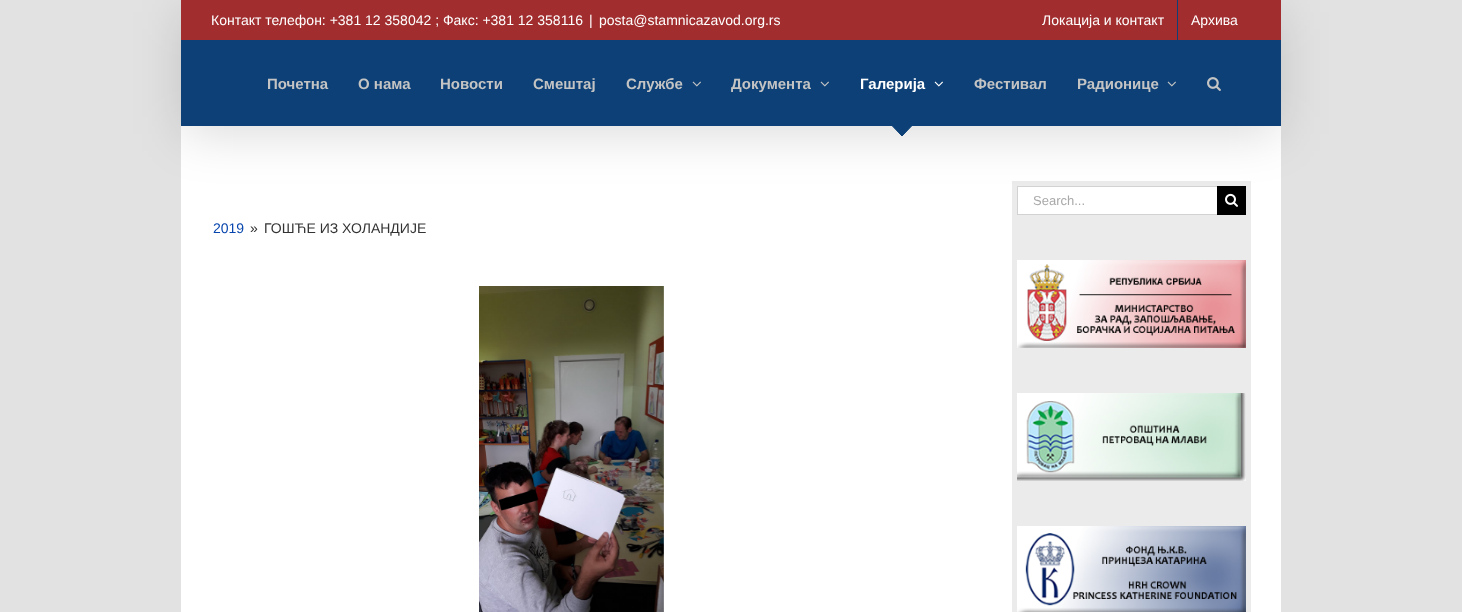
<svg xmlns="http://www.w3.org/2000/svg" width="1462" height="612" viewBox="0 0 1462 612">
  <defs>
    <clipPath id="clip1"><rect x="891" y="125" width="23" height="11"/></clipPath>
  </defs>
  <rect width="100%" height="100%" fill="rgb(226,226,226)"/>
  <rect x="181" y="126" width="1100" height="486" fill="rgb(255,255,255)"/>
  <rect x="1012" y="181" width="239" height="431" fill="rgb(235,235,235)"/>
  <rect x="1018" y="187" width="199" height="27" fill="rgb(255,255,255)"/>
  <rect x="1017" y="186" width="200" height="1" fill="rgb(210,210,210)"/>
  <rect x="1017" y="214" width="200" height="1" fill="rgb(210,210,210)"/>
  <rect x="1017" y="186" width="1" height="29" fill="rgb(210,210,210)"/>
  <rect x="1217" y="186" width="29" height="29" fill="rgb(0,0,0)"/>
  <image x="1225" y="193" width="13" height="14" href="pic4.png"/>
  <rect x="183" y="12" width="1096" height="122" fill="rgba(0,0,0,0.14)" filter="blur(25px)"/>
  <rect x="181" y="0" width="1100" height="40" fill="rgb(161,45,46)"/>
  <rect x="181" y="40" width="1100" height="86" fill="rgb(12,64,118)"/>
  <g font-family="Liberation Sans" font-size="14" fill="rgb(255,255,255)">
    <text x="211" y="25">Контакт телефон: +381 12 358042 ; Факс: +381 12 358116</text>
    <text x="589" y="25">|</text>
    <text x="599" y="25">posta@stamnicazavod.org.rs</text>
    <text x="1042" y="25">Локација и контакт</text>
  </g>
  <rect x="1177" y="0" width="1" height="40" fill="rgb(12,64,118)"/>
  <text x="1191" y="25" font-family="Liberation Sans" font-size="14" fill="rgb(255,255,255)">Архива</text>
  <g font-family="Liberation Sans" font-size="15" font-weight="bold" fill="rgb(196,196,196)">
    <text x="267" y="89">Почетна</text>
    <text x="358" y="89">О нама</text>
    <text x="440" y="89">Новости</text>
    <text x="533" y="89">Смештај</text>
    <text x="626" y="89">Службе</text>
  </g>
  <image x="692" y="81" width="9" height="6" href="pic1.png"/>
  <text x="731" y="89" font-family="Liberation Sans" font-size="15" font-weight="bold" fill="rgb(196,196,196)">Документа</text>
  <image x="820" y="81" width="9" height="6" href="pic1.png"/>
  <text x="860" y="89" font-family="Liberation Sans" font-size="15" font-weight="bold" fill="rgb(255,255,255)">Галерија</text>
  <g clip-path="url(#clip1)">
    <path d="M890.5 124L902 136L913.5 124Z" fill="rgb(12,64,118)" stroke="rgb(12,64,118)"/>
  </g>
  <image x="934" y="81" width="9" height="6" href="pic2.png"/>
  <g font-family="Liberation Sans" font-size="15" font-weight="bold" fill="rgb(196,196,196)">
    <text x="974" y="89">Фестивал</text>
    <text x="1077" y="89">Радионице</text>
  </g>
  <image x="1167" y="81" width="9" height="6" href="pic1.png"/>
  <image x="1207" y="77" width="14" height="14" href="pic3.png"/>
  <text x="1033" y="205" font-family="Liberation Sans" font-size="13" fill="rgb(170,169,169)">Search...</text>
  <image x="1017" y="260" width="229" height="88" href="pic5.png"/>
  <image x="1017" y="393" width="229" height="88" href="pic6.png"/>
  <image x="1017" y="526" width="229" height="86" href="pic7.png"/>
  <text x="213" y="233" font-family="Liberation Sans" font-size="14" fill="rgb(6,69,173)">2019</text>
  <g font-family="Liberation Sans" font-size="14" fill="rgb(51,51,51)">
    <text x="250" y="233">»</text>
    <text x="264" y="233">ГОШЋЕ ИЗ ХОЛАНДИЈЕ</text>
  </g>
  <image x="479" y="286" width="185" height="326" href="pic8.png"/>
</svg>
